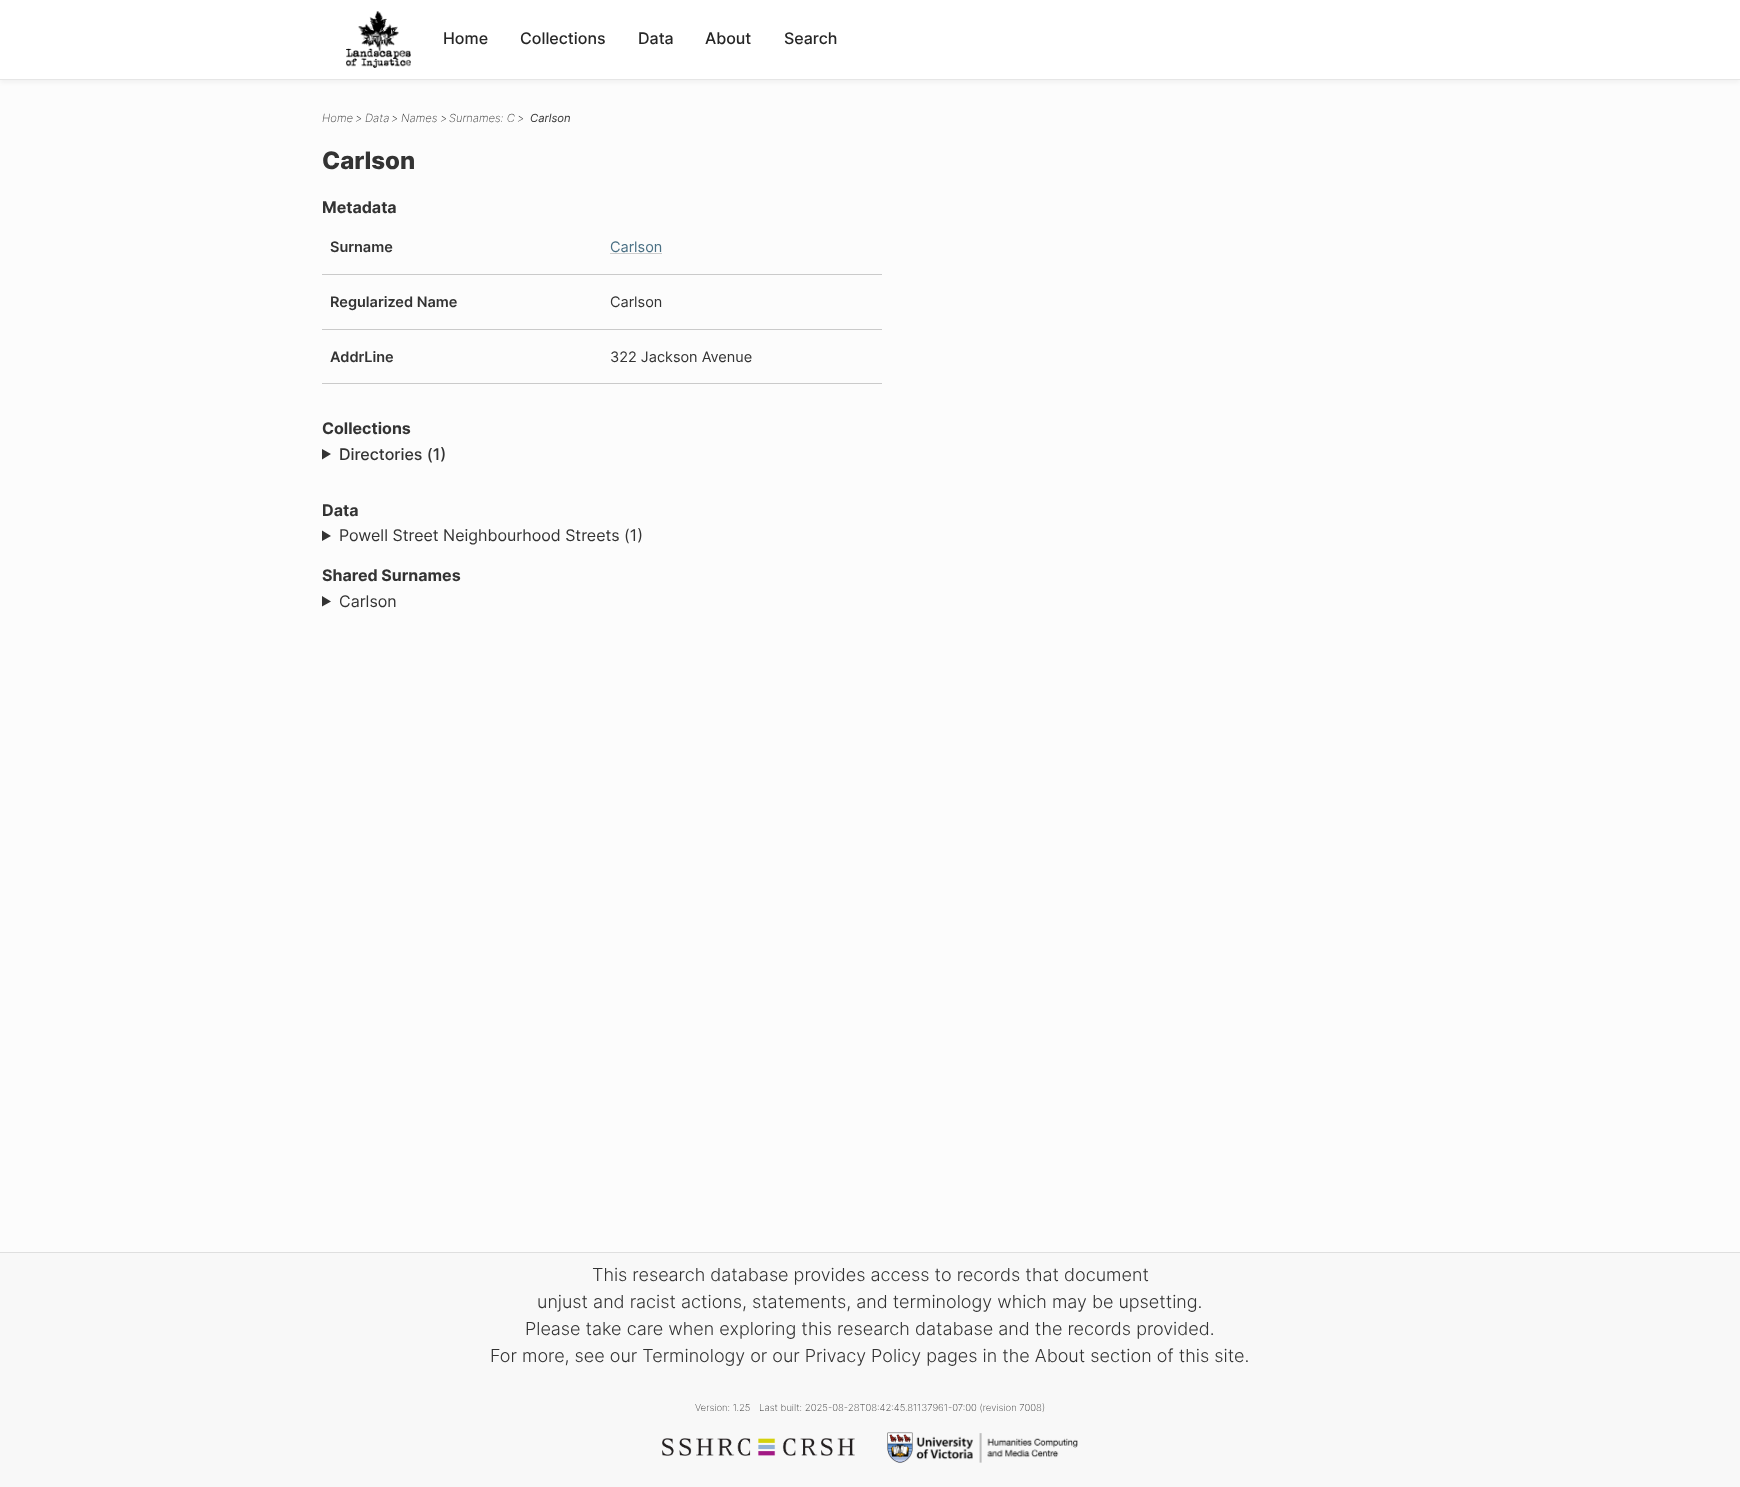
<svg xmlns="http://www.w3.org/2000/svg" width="1740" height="1487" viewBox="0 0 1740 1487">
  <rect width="100%" height="100%" fill="rgb(252,252,252)"/>
  <rect x="0" y="2" width="1740" height="80" fill="rgba(0,0,0,0.05)" filter="blur(2.5px)"/>
  <rect x="0" y="0" width="1740" height="79" fill="rgb(255,255,255)"/>
  <rect x="0" y="79" width="1740" height="1" fill="rgb(230,230,230)"/>
  <image x="346" y="11" width="65" height="57" href="pic1.png"/>
  <g font-family="Inter" font-size="16" font-weight="500" fill="rgb(38,38,38)">
    <text x="443" y="44">Home</text>
    <text x="520" y="44">Collections</text>
    <text x="638" y="44">Data</text>
    <text x="705" y="44">About</text>
    <text x="784" y="44">Search</text>
  </g>
  <g font-family="Inter" font-size="11.25" font-weight="200" font-style="italic" fill="rgb(51,51,51)">
    <text x="322" y="122">Home</text>
    <text x="355" y="122">&gt;</text>
    <text x="365" y="122">Data</text>
    <text x="391" y="122">&gt;</text>
    <text x="401" y="122">Names</text>
    <text x="440" y="122">&gt;</text>
    <text x="449" y="122">Surnames: C</text>
    <text x="517" y="122">&gt;</text>
  </g>
  <text x="530" y="122" font-family="Inter" font-size="11.25" font-style="italic" fill="rgb(51,51,51)">Carlson</text>
  <text x="322" y="169" font-family="Inter" font-size="24" font-weight="800" fill="rgb(51,51,51)">Carlson</text>
  <text x="322" y="213" font-family="Inter" font-size="16" font-weight="bold" fill="rgb(51,51,51)">Metadata</text>
  <text x="330" y="252" font-family="Inter" font-size="14.5" font-weight="600" fill="rgb(51,51,51)">Surname</text>
  <rect x="322" y="274" width="560" height="1" fill="rgb(202,202,202)"/>
  <text x="610" y="252" font-family="Inter" font-size="14.5" fill="rgb(74,112,132)">Carlson</text>
  <rect x="610" y="253" width="52" height="1" fill="rgb(204,204,204)"/>
  <text x="330" y="307" font-family="Inter" font-size="14.5" font-weight="600" fill="rgb(51,51,51)">Regularized Name</text>
  <rect x="322" y="329" width="560" height="1" fill="rgb(202,202,202)"/>
  <text x="610" y="307" font-family="Inter" font-size="14.5" fill="rgb(51,51,51)">Carlson</text>
  <text x="330" y="362" font-family="Inter" font-size="14.5" font-weight="600" fill="rgb(51,51,51)">AddrLine</text>
  <rect x="322" y="383" width="560" height="1" fill="rgb(202,202,202)"/>
  <text x="610" y="362" font-family="Inter" font-size="14.5" fill="rgb(51,51,51)">322 Jackson Avenue</text>
  <text x="322" y="434" font-family="Inter" font-size="16" font-weight="bold" fill="rgb(51,51,51)">Collections</text>
  <path d="M322 449L331 454L322 459.5Z" fill="rgb(51,51,51)"/>
  <text x="339" y="460" font-family="Inter" font-size="16" font-weight="500" fill="rgb(51,51,51)">Directories (1)</text>
  <text x="322" y="516" font-family="Inter" font-size="16" font-weight="bold" fill="rgb(51,51,51)">Data</text>
  <path d="M322 530.5L331 536L322 541Z" fill="rgb(51,51,51)"/>
  <text x="339" y="541" font-family="Inter" font-size="16" fill="rgb(51,51,51)">Powell Street Neighbourhood Streets (1)</text>
  <text x="322" y="581" font-family="Inter" font-size="16" font-weight="bold" fill="rgb(51,51,51)">Shared Surnames</text>
  <path d="M322 596L331 601.5L322 606.5Z" fill="rgb(51,51,51)"/>
  <text x="339" y="607" font-family="Inter" font-size="16" fill="rgb(51,51,51)">Carlson</text>
  <rect x="0" y="1253" width="1740" height="234" fill="rgb(248,248,248)"/>
  <rect x="0" y="1252" width="1740" height="1" fill="rgb(223,223,223)"/>
  <g font-family="Inter" font-size="18" font-weight="300" fill="rgb(51,51,51)">
    <text x="592" y="1281">This research database provides access to records that document</text>
    <text x="537" y="1308">unjust and racist actions, statements, and terminology which may be upsetting.</text>
    <text x="525" y="1335">Please take care when exploring this research database and the records provided.</text>
    <text x="490" y="1362">For more, see our Terminology or our Privacy Policy pages in the About section of this site.</text>
  </g>
  <g font-family="Inter" font-size="9.6" font-weight="200" fill="rgb(51,51,51)">
    <text x="695" y="1411">Version: 1.25</text>
    <text x="759" y="1411">Last built: 2025-08-28T08:42:45.81137961-07:00 (revision 7008)</text>
  </g>
  <image x="662" y="1438" width="193" height="18" href="pic2.png"/>
  <image x="887" y="1432" width="191" height="31" href="pic3.png"/>
</svg>
